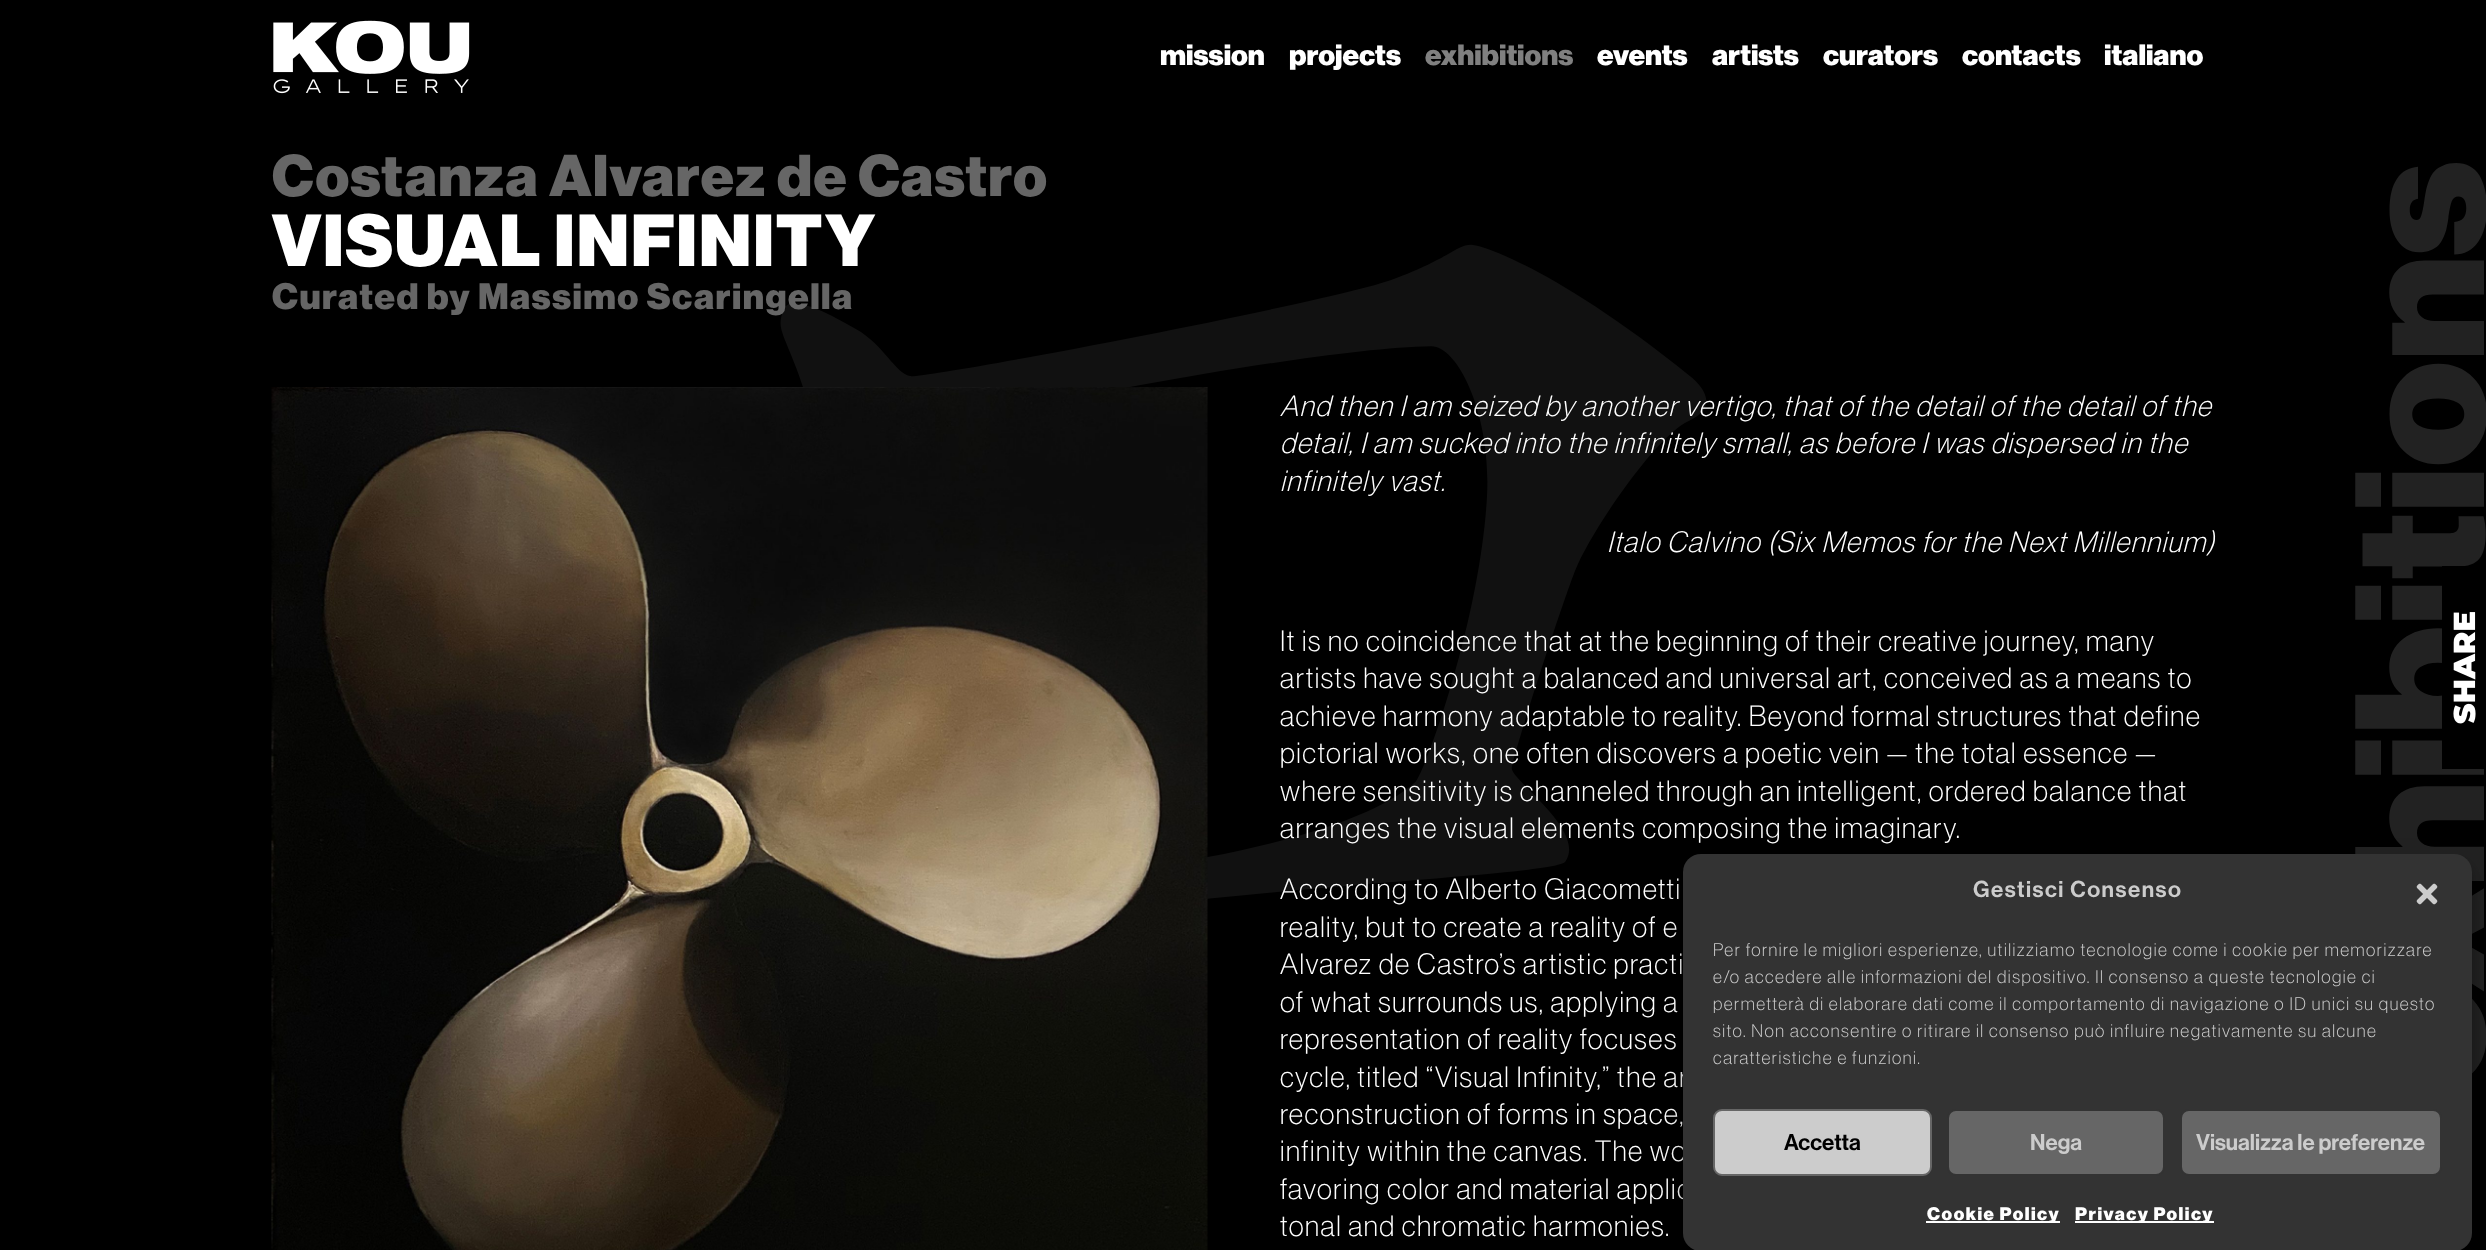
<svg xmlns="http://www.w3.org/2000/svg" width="2486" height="1250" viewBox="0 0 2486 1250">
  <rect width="100%" height="100%" fill="rgb(0,0,0)"/>
  <image x="780" y="163" width="1706" height="911" href="pic1.png"/>
  <image x="273" y="20" width="197" height="74" href="pic2.png"/>
  <g font-family="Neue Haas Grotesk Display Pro" font-size="28.8" font-weight="900" fill="rgb(255,255,255)">
    <text x="1160" y="65">mission</text>
    <text x="1289" y="65">projects</text>
  </g>
  <text x="1425" y="65" font-family="Neue Haas Grotesk Display Pro" font-size="28.8" font-weight="900" fill="rgb(128,128,128)">exhibitions</text>
  <g font-family="Neue Haas Grotesk Display Pro" font-size="28.8" font-weight="900" fill="rgb(255,255,255)">
    <text x="1597" y="65">events</text>
    <text x="1712" y="65">artists</text>
    <text x="1823" y="65">curators</text>
    <text x="1962" y="65">contacts</text>
    <text x="2104" y="65">italiano</text>
  </g>
  <text x="272" y="196" font-family="Neue Haas Grotesk Display Pro" font-size="57.6" font-weight="900" letter-spacing="1.5" fill="rgb(102,102,102)">Costanza Alvarez de Castro</text>
  <text x="272" y="266" font-family="Neue Haas Grotesk Display Pro" font-size="72" font-weight="900" letter-spacing="1.5" fill="rgb(255,255,255)">VISUAL INFINITY</text>
  <text x="272" y="309" font-family="Neue Haas Grotesk Display Pro" font-size="36" font-weight="900" letter-spacing="1.5" fill="rgb(102,102,102)">Curated by Massimo Scaringella</text>
  <image x="271" y="387" width="937" height="863" href="pic3.png"/>
  <g font-family="Neue Haas Grotesk Display Pro" font-size="28.8" font-weight="100" font-style="italic" letter-spacing="1.5" fill="rgb(255,255,255)">
    <text>
      <tspan x="1280" y="416">And then I am seized by another vertigo, that of the detail of the detail of the</tspan>
      <tspan x="1280" y="453">detail, I am sucked into the infinitely small, as before I was dispersed in the</tspan>
      <tspan x="1280" y="491">infinitely vast.</tspan>
    </text>
    <text x="1607" y="552">Italo Calvino (Six Memos for the Next Millennium)</text>
  </g>
  <g font-family="Neue Haas Grotesk Display Pro" font-size="28.8" font-weight="100" letter-spacing="1.5" fill="rgb(255,255,255)">
    <text>
      <tspan x="1280" y="651">It is no coincidence that at the beginning of their creative journey, many</tspan>
      <tspan x="1280" y="688">artists have sought a balanced and universal art, conceived as a means to</tspan>
      <tspan x="1280" y="726">achieve harmony adaptable to reality. Beyond formal structures that define</tspan>
      <tspan x="1280" y="763">pictorial works, one often discovers a poetic vein — the total essence —</tspan>
      <tspan x="1280" y="801">where sensitivity is channeled through an intelligent, ordered balance that</tspan>
      <tspan x="1280" y="838">arranges the visual elements composing the imaginary.</tspan>
    </text>
    <text>
      <tspan x="1280" y="899">According to Alberto Giacometti</tspan>
      <tspan x="1280" y="937">reality, but to create a reality of e</tspan>
      <tspan x="1280" y="974">Alvarez de Castro’s artistic practi</tspan>
      <tspan x="1280" y="1012">of what surrounds us, applying a</tspan>
      <tspan x="1280" y="1049">representation of reality focuses</tspan>
      <tspan x="1280" y="1087">cycle, titled “Visual Infinity,” the ar</tspan>
      <tspan x="1280" y="1124">reconstruction of forms in space,</tspan>
      <tspan x="1280" y="1161">infinity within the canvas. The wo</tspan>
      <tspan x="1280" y="1199">favoring color and material applic</tspan>
      <tspan x="1280" y="1236">tonal and chromatic harmonies.</tspan>
    </text>
  </g>
  <image x="2442" y="566" width="44" height="203" href="pic4.png"/>
  <rect x="1683" y="863" width="789" height="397" rx="18" fill="rgba(0,0,0,0.23)" filter="blur(4.5px)"/>
  <rect x="1683" y="869" width="789" height="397" rx="18" fill="rgba(0,0,0,0.19)" filter="blur(15px)"/>
  <rect x="1683" y="854" width="789" height="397" rx="18" fill="rgb(51,51,51)"/>
  <text x="1973" y="897" font-family="Neue Haas Grotesk Display Pro" font-size="22.5" font-weight="600" letter-spacing="1.5" fill="rgb(204,204,204)">Gestisci Consenso</text>
  <image x="2416" y="883" width="22" height="22" href="pic5.png"/>
  <g font-family="Neue Haas Grotesk Display Pro" font-size="18" font-weight="100" letter-spacing="1.5" fill="rgb(204,204,204)">
    <text>
      <tspan x="1713" y="956">Per fornire le migliori esperienze, utilizziamo tecnologie come i cookie per memorizzare</tspan>
      <tspan x="1713" y="983">e/o accedere alle informazioni del dispositivo. Il consenso a queste tecnologie ci</tspan>
      <tspan x="1713" y="1010">permetterà di elaborare dati come il comportamento di navigazione o ID unici su questo</tspan>
      <tspan x="1713" y="1037">sito. Non acconsentire o ritirare il consenso può influire negativamente su alcune</tspan>
      <tspan x="1713" y="1064">caratteristiche e funzioni.</tspan>
    </text>
  </g>
  <rect x="1714" y="1110" width="217" height="65" rx="8" fill="rgb(204,204,204)" stroke="rgb(102,102,102)" stroke-width="2"/>
  <text x="1784" y="1150" font-family="Neue Haas Grotesk Display Pro" font-size="22.5" font-weight="600" fill="rgb(0,0,0)">Accetta</text>
  <rect x="1948" y="1110" width="216" height="65" rx="8" fill="rgb(102,102,102)" stroke="rgb(51,51,51)" stroke-width="2"/>
  <text x="2030" y="1150" font-family="Neue Haas Grotesk Display Pro" font-size="22.5" font-weight="600" fill="rgb(204,204,204)">Nega</text>
  <rect x="2181" y="1110" width="260" height="65" rx="8" fill="rgb(102,102,102)" stroke="rgb(51,51,51)" stroke-width="2"/>
  <text x="2196" y="1150" font-family="Neue Haas Grotesk Display Pro" font-size="22.5" font-weight="600" fill="rgb(204,204,204)">Visualizza le preferenze</text>
  <rect x="1926" y="1221" width="134" height="2" fill="rgb(255,255,255)"/>
  <text x="1927" y="1220" font-family="Neue Haas Grotesk Display Pro" font-size="18" font-weight="900" letter-spacing="1.5" fill="rgb(255,255,255)">Cookie Policy</text>
  <rect x="2075" y="1221" width="139" height="2" fill="rgb(255,255,255)"/>
  <text x="2075" y="1220" font-family="Neue Haas Grotesk Display Pro" font-size="18" font-weight="900" letter-spacing="1.5" fill="rgb(255,255,255)">Privacy Policy</text>
</svg>
